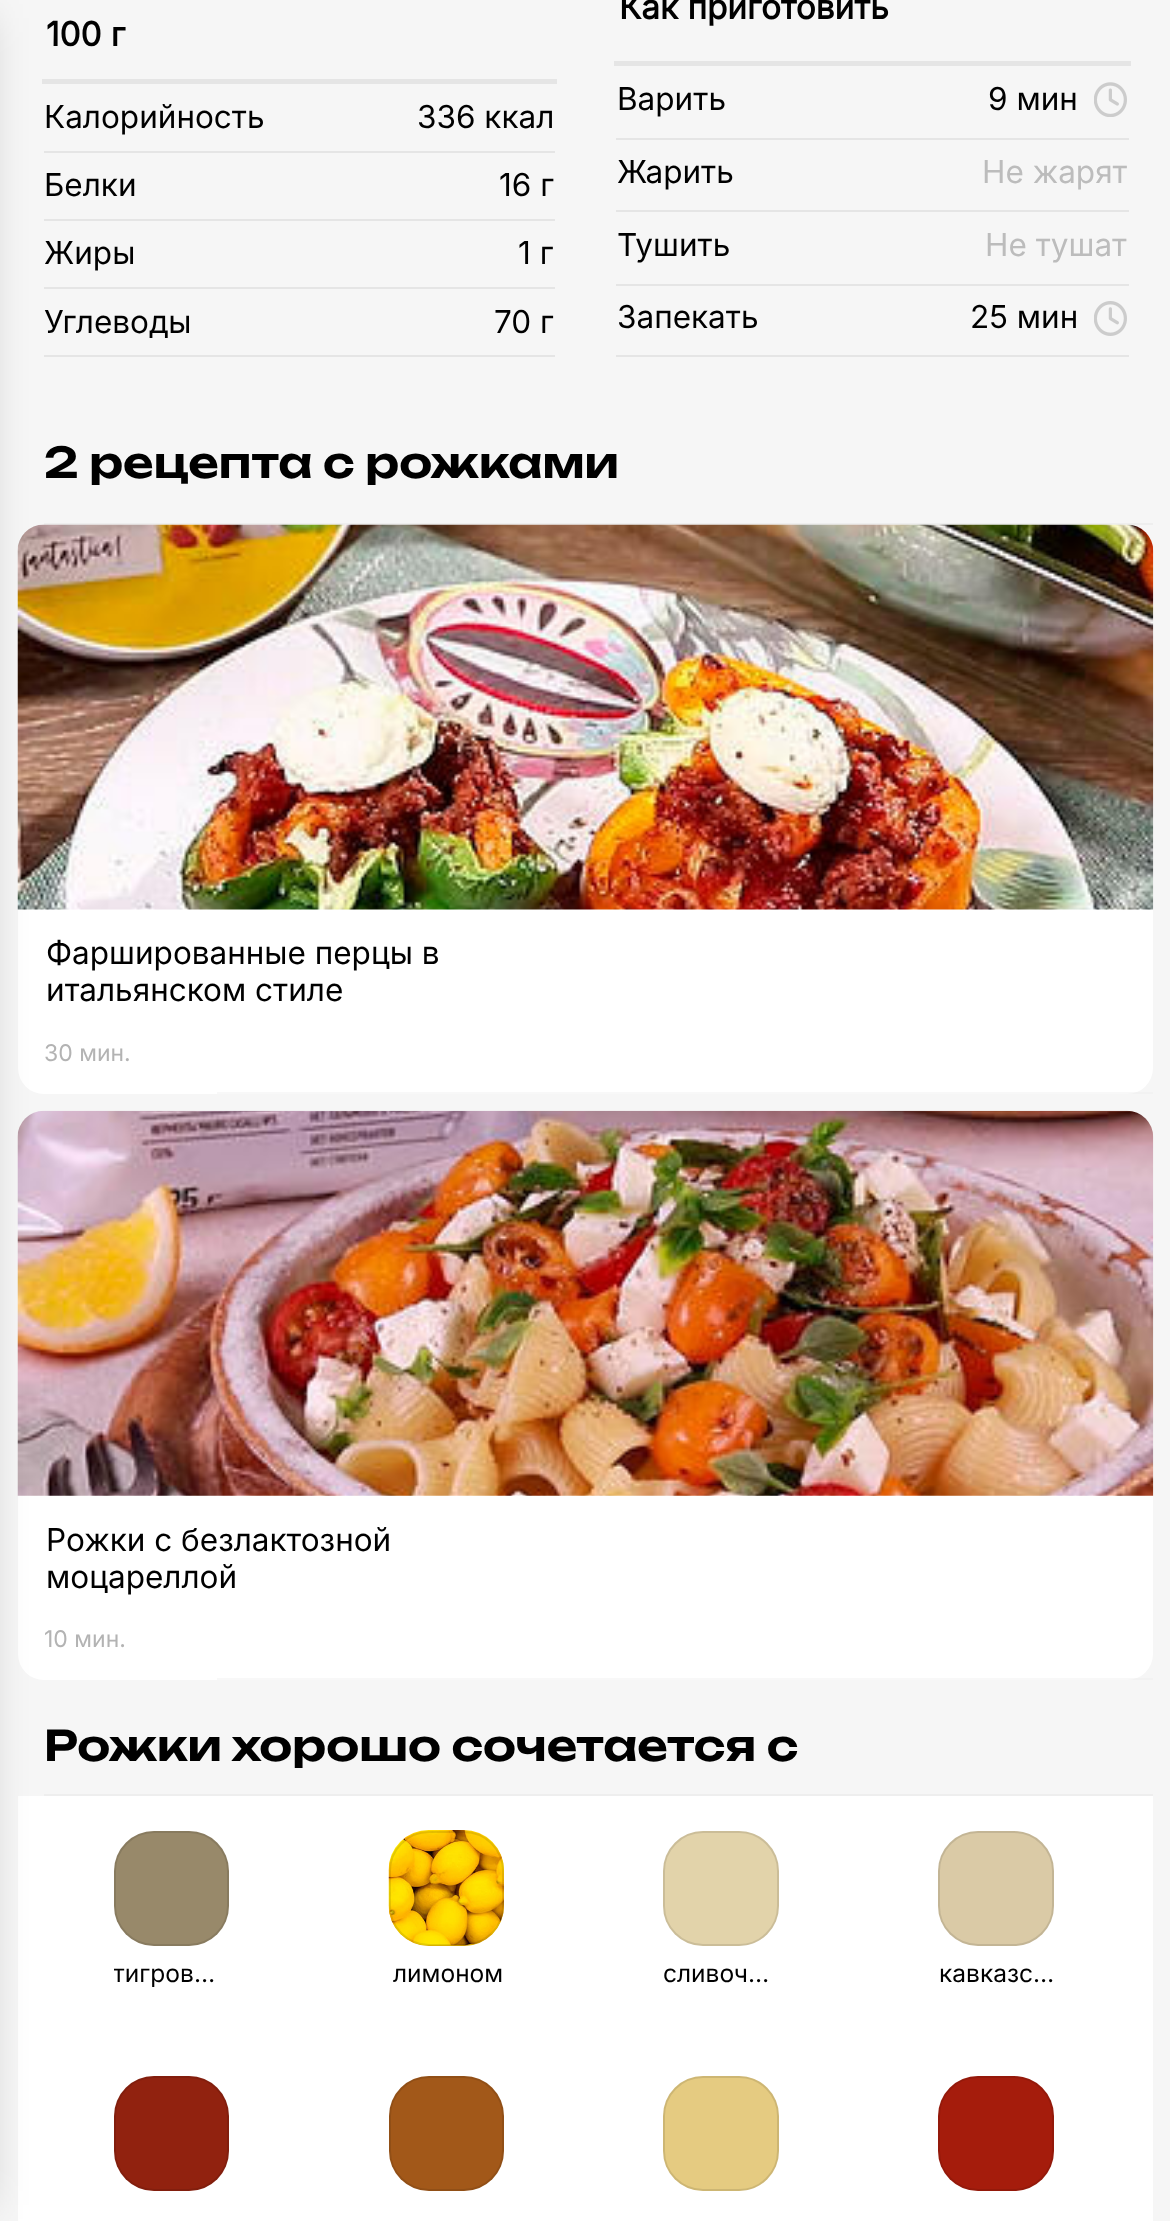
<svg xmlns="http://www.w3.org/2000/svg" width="1170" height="2221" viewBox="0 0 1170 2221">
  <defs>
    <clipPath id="clip1"><rect x="114" y="1958" width="119" height="56"/></clipPath>
  </defs>
  <rect width="100%" height="100%" fill="rgb(246,246,246)"/>
  <rect x="42" y="79" width="515" height="5" fill="rgb(229,229,229)"/>
  <rect x="44" y="151" width="511" height="2" fill="rgb(229,229,229)"/>
  <rect x="44" y="219" width="511" height="2" fill="rgb(229,229,229)"/>
  <rect x="44" y="287" width="511" height="2" fill="rgb(229,229,229)"/>
  <rect x="44" y="355" width="511" height="2" fill="rgb(229,229,229)"/>
  <rect x="44" y="523" width="1109" height="2" fill="rgb(238,238,238)"/>
  <rect x="18" y="525" width="1135" height="569" rx="26" fill="rgb(255,255,255)"/>
  <image x="17" y="524" width="1137" height="386" href="pic3.png"/>
  <rect x="18" y="1111" width="1135" height="569" rx="26" fill="rgb(255,255,255)"/>
  <image x="17" y="1110" width="1137" height="386" href="pic4.png"/>
  <rect x="44" y="1794" width="1109" height="2" fill="rgb(238,238,238)"/>
  <rect x="18" y="1796" width="1135" height="425" fill="rgb(255,255,255)"/>
  <rect x="-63" y="18" width="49" height="2187" fill="rgba(0,0,0,0.2)" filter="blur(21px)"/>
  <text x="46" y="46" font-family="Inter" font-size="33.25" font-weight="bold" fill="rgb(0,0,0)">100 г</text>
  <g font-family="Inter" font-size="31.5" fill="rgb(0,0,0)">
    <text x="44" y="128">Калорийность</text>
    <text x="417" y="128">336 ккал</text>
    <text x="44" y="196">Белки</text>
    <text x="499" y="196">16 г</text>
    <text x="44" y="264">Жиры</text>
    <text x="518" y="264">1 г</text>
    <text x="44" y="333">Углеводы</text>
    <text x="494" y="333">70 г</text>
  </g>
  <rect x="614" y="61" width="517" height="5" fill="rgb(229,229,229)"/>
  <text x="619" y="19" font-family="Inter" font-size="33.25" font-weight="bold" fill="rgb(0,0,0)">Как приготовить</text>
  <text x="617" y="110" font-family="Inter" font-size="31.5" fill="rgb(0,0,0)">Варить</text>
  <rect x="616" y="138" width="513" height="2" fill="rgb(229,229,229)"/>
  <text x="988" y="110" font-family="Inter" font-size="31.5" fill="rgb(0,0,0)">9 мин</text>
  <image x="1094" y="82" width="33" height="35" href="pic1.png"/>
  <text x="617" y="183" font-family="Inter" font-size="31.5" fill="rgb(0,0,0)">Жарить</text>
  <rect x="616" y="210" width="513" height="2" fill="rgb(229,229,229)"/>
  <text x="982" y="183" font-family="Inter" font-size="31.5" fill="rgb(188,188,188)">Не жарят</text>
  <text x="617" y="256" font-family="Inter" font-size="31.5" fill="rgb(0,0,0)">Тушить</text>
  <rect x="616" y="284" width="513" height="2" fill="rgb(229,229,229)"/>
  <text x="985" y="256" font-family="Inter" font-size="31.5" fill="rgb(188,188,188)">Не тушат</text>
  <text x="617" y="328" font-family="Inter" font-size="31.5" fill="rgb(0,0,0)">Запекать</text>
  <rect x="616" y="355" width="513" height="2" fill="rgb(229,229,229)"/>
  <text x="970" y="328" font-family="Inter" font-size="31.5" fill="rgb(0,0,0)">25 мин</text>
  <image x="1094" y="301" width="33" height="35" href="pic2.png"/>
  <text x="44" y="478" font-family="Unbounded" font-size="42" font-weight="600" fill="rgb(0,0,0)">2 рецепта c рожками</text>
  <g font-family="Inter" font-size="31.5" fill="rgb(0,0,0)">
    <text>
      <tspan x="46" y="964">Фаршированные перцы в</tspan>
      <tspan x="46" y="1001">итальянском стиле</tspan>
    </text>
  </g>
  <text x="44" y="1061" font-family="Inter" font-size="23" fill="rgb(179,179,179)">30 мин.</text>
  <rect x="217" y="1092" width="936" height="2" fill="rgba(231,231,231,0.3)"/>
  <g font-family="Inter" font-size="31.5" fill="rgb(0,0,0)">
    <text>
      <tspan x="46" y="1551">Рожки с безлактозной</tspan>
      <tspan x="46" y="1588">моцареллой</tspan>
    </text>
  </g>
  <text x="44" y="1647" font-family="Inter" font-size="23" fill="rgb(179,179,179)">10 мин.</text>
  <rect x="217" y="1678" width="936" height="2" fill="rgba(231,231,231,0.3)"/>
  <text x="44" y="1761" font-family="Unbounded" font-size="42" font-weight="600" fill="rgb(0,0,0)">Рожки хорошо сочетается с</text>
  <rect x="114" y="1831" width="115" height="115" rx="40" fill="rgb(152,137,106)"/>
  <rect x="115" y="1832" width="113" height="113" rx="39" fill="none" stroke="rgba(0,0,0,0.1)" stroke-width="2"/>
  <g clip-path="url(#clip1)">
    <text x="113" y="1982" font-family="Inter" font-size="24.5" fill="rgb(0,0,0)">тигров…</text>
  </g>
  <rect x="389" y="1831" width="115" height="115" rx="40" fill="rgb(238,184,0)"/>
  <image x="388" y="1830" width="116" height="116" href="pic5.png"/>
  <rect x="390" y="1832" width="113" height="113" rx="39" fill="none" stroke="rgba(0,0,0,0.1)" stroke-width="2"/>
  <text x="393" y="1982" font-family="Inter" font-size="24.5" fill="rgb(0,0,0)">лимоном</text>
  <rect x="663" y="1831" width="116" height="115" rx="40" fill="rgb(226,211,170)"/>
  <rect x="664" y="1832" width="114" height="113" rx="39" fill="none" stroke="rgba(0,0,0,0.1)" stroke-width="2"/>
  <text x="663" y="1982" font-family="Inter" font-size="24.5" fill="rgb(0,0,0)">сливоч…</text>
  <rect x="938" y="1831" width="116" height="115" rx="40" fill="rgb(218,202,166)"/>
  <rect x="939" y="1832" width="114" height="113" rx="39" fill="none" stroke="rgba(0,0,0,0.1)" stroke-width="2"/>
  <text x="939" y="1982" font-family="Inter" font-size="24.5" fill="rgb(0,0,0)">кавказс…</text>
  <rect x="114" y="2076" width="115" height="115" rx="40" fill="rgb(145,34,15)"/>
  <rect x="115" y="2077" width="113" height="113" rx="39" fill="none" stroke="rgba(0,0,0,0.1)" stroke-width="2"/>
  <rect x="389" y="2076" width="115" height="115" rx="40" fill="rgb(162,88,25)"/>
  <rect x="390" y="2077" width="113" height="113" rx="39" fill="none" stroke="rgba(0,0,0,0.1)" stroke-width="2"/>
  <rect x="663" y="2076" width="116" height="115" rx="40" fill="rgb(229,203,129)"/>
  <rect x="664" y="2077" width="114" height="113" rx="39" fill="none" stroke="rgba(0,0,0,0.1)" stroke-width="2"/>
  <rect x="938" y="2076" width="116" height="115" rx="40" fill="rgb(165,28,12)"/>
  <rect x="939" y="2077" width="114" height="113" rx="39" fill="none" stroke="rgba(0,0,0,0.1)" stroke-width="2"/>
</svg>
